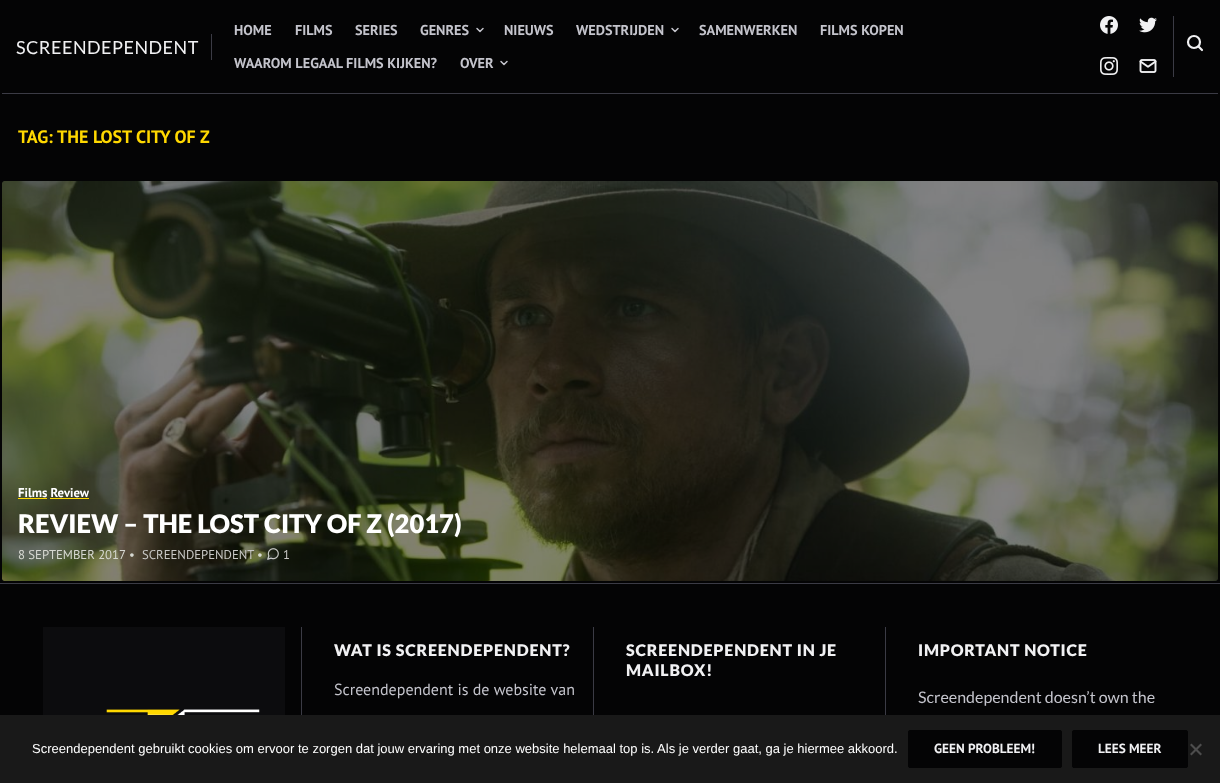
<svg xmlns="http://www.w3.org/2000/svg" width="1220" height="783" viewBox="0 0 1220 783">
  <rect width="100%" height="100%" fill="rgb(4,4,5)"/>
  <rect x="211" y="34" width="1" height="26" fill="rgb(59,59,69)"/>
  <text x="16" y="54" font-family="Lato" font-size="18" letter-spacing="0.5" fill="rgb(241,241,243)">SCREENDEPENDENT</text>
  <g font-family="PT Sans" font-size="14.25" font-weight="bold" fill="rgb(196,196,204)">
    <text x="234" y="35">HOME</text>
    <text x="295" y="35">FILMS</text>
    <text x="355" y="35">SERIES</text>
    <text x="420" y="35">GENRES</text>
  </g>
  <path d="M477 28.5L480 31.5L483 28.5" fill="none" stroke="rgb(196,196,204)" stroke-width="1.5" stroke-linecap="round" stroke-linejoin="round"/>
  <g font-family="PT Sans" font-size="14.25" font-weight="bold" fill="rgb(196,196,204)">
    <text x="504" y="35">NIEUWS</text>
    <text x="576" y="35">WEDSTRIJDEN</text>
  </g>
  <path d="M672 28.5L675 31.5L678 28.5" fill="none" stroke="rgb(196,196,204)" stroke-width="1.5" stroke-linecap="round" stroke-linejoin="round"/>
  <g font-family="PT Sans" font-size="14.25" font-weight="bold" fill="rgb(196,196,204)">
    <text x="699" y="35">SAMENWERKEN</text>
    <text x="820" y="35">FILMS KOPEN</text>
    <text x="234" y="68">WAAROM LEGAAL FILMS KIJKEN?</text>
    <text x="460" y="68">OVER</text>
  </g>
  <path d="M501 61.5L504 64.5L507 61.5" fill="none" stroke="rgb(196,196,204)" stroke-width="1.5" stroke-linecap="round" stroke-linejoin="round"/>
  <rect x="1173" y="16" width="1" height="61" fill="rgb(59,59,69)"/>
  <image x="1100" y="16" width="18" height="18" href="pic1.png"/>
  <image x="1139" y="17" width="18" height="16" href="pic2.png"/>
  <image x="1100" y="57" width="18" height="18" href="pic3.png"/>
  <image x="1139" y="59" width="18" height="14" href="pic4.png"/>
  <circle cx="1194" cy="42" r="6" fill="none" stroke="rgb(241,241,243)" stroke-width="2.2"/>
  <path d="M1202 50L1198.5 46.5" fill="none" stroke="rgb(241,241,243)" stroke-width="2.2" stroke-linecap="round" stroke-linejoin="round"/>
  <rect x="2" y="93" width="1216" height="1" fill="rgb(59,59,69)"/>
  <g font-family="PT Sans" font-size="18" font-weight="bold" fill="rgb(255,216,0)">
    <text x="18" y="143">TAG:</text>
    <text x="57" y="143">THE LOST CITY OF Z</text>
  </g>
  <image x="2" y="181" width="1216" height="400" href="pic5.png"/>
  <text x="18" y="497" font-family="PT Sans" font-size="12.75" font-weight="bold" fill="rgb(255,255,255)">Films Review</text>
  <rect x="18" y="498" width="29" height="1" fill="rgb(255,216,0)"/>
  <rect x="50" y="498" width="39" height="1" fill="rgb(255,216,0)"/>
  <text x="18" y="533" font-family="Lato" font-size="25.6" font-weight="900" fill="rgb(255,255,255)">REVIEW – THE LOST CITY OF Z (2017)</text>
  <g font-family="PT Sans" font-size="12.75" fill="rgb(214,216,209)">
    <text x="18" y="559">8 SEPTEMBER 2017</text>
    <text x="129" y="559">•</text>
  </g>
  <text x="142" y="559" font-family="PT Sans" font-size="12.75" fill="rgb(200,200,197)">SCREENDEPENDENT</text>
  <text x="257" y="559" font-family="PT Sans" font-size="12.75" fill="rgb(214,216,209)">•</text>
  <image x="267" y="548" width="12" height="12" href="pic6.png"/>
  <text x="283" y="559" font-family="PT Sans" font-size="12.75" fill="rgb(200,200,197)">1</text>
  <rect x="0" y="583" width="1220" height="1" fill="rgb(59,59,69)"/>
  <rect x="301" y="627" width="1" height="88" fill="rgb(59,59,69)"/>
  <image x="43" y="627" width="242" height="88" href="pic7.png"/>
  <rect x="593" y="627" width="1" height="88" fill="rgb(59,59,69)"/>
  <text x="334" y="656" font-family="Lato" font-size="16" font-weight="900" letter-spacing="0.8" fill="rgb(241,241,243)">WAT IS SCREENDEPENDENT?</text>
  <text x="334" y="695" font-family="PT Sans" font-size="16" fill="rgb(196,196,204)">Screendependent is de website van</text>
  <rect x="885" y="627" width="1" height="88" fill="rgb(59,59,69)"/>
  <g font-family="Lato" font-size="16" font-weight="900" letter-spacing="0.8" fill="rgb(241,241,243)">
    <text>
      <tspan x="626" y="656">SCREENDEPENDENT IN JE</tspan>
      <tspan x="626" y="676">MAILBOX!</tspan>
    </text>
    <text x="918" y="656">IMPORTANT NOTICE</text>
  </g>
  <text x="918" y="703" font-family="Lato" font-size="16" fill="rgb(196,196,204)">Screendependent doesn’t own the</text>
  <rect x="0" y="715" width="1220" height="68" fill="rgb(25,25,25)"/>
  <text x="32" y="753" font-family="Liberation Sans" font-size="13" fill="rgb(255,255,255)">Screendependent gebruikt cookies om ervoor te zorgen dat jouw ervaring met onze website helemaal top is. Als je verder gaat, ga je hiermee akkoord.</text>
  <rect x="908.5" y="730.5" width="153" height="37" rx="1.5" fill="rgb(4,4,5)" stroke="rgb(4,4,5)"/>
  <text x="934" y="753" font-family="PT Sans" font-size="13.25" font-weight="bold" fill="rgb(241,241,243)">GEEN PROBLEEM!</text>
  <rect x="1072.5" y="730.5" width="115" height="37" rx="1.5" fill="rgb(4,4,5)" stroke="rgb(4,4,5)"/>
  <text x="1098" y="753" font-family="PT Sans" font-size="13.25" font-weight="bold" fill="rgb(241,241,243)">LEES MEER</text>
  <path d="M1200.5 743.5L1202 745L1191.5 755.5L1190 754Z" fill="rgb(77,77,77)"/>
  <path d="M1190 745L1191.5 743.5L1202 754L1200.5 755.5Z" fill="rgb(77,77,77)"/>
</svg>
